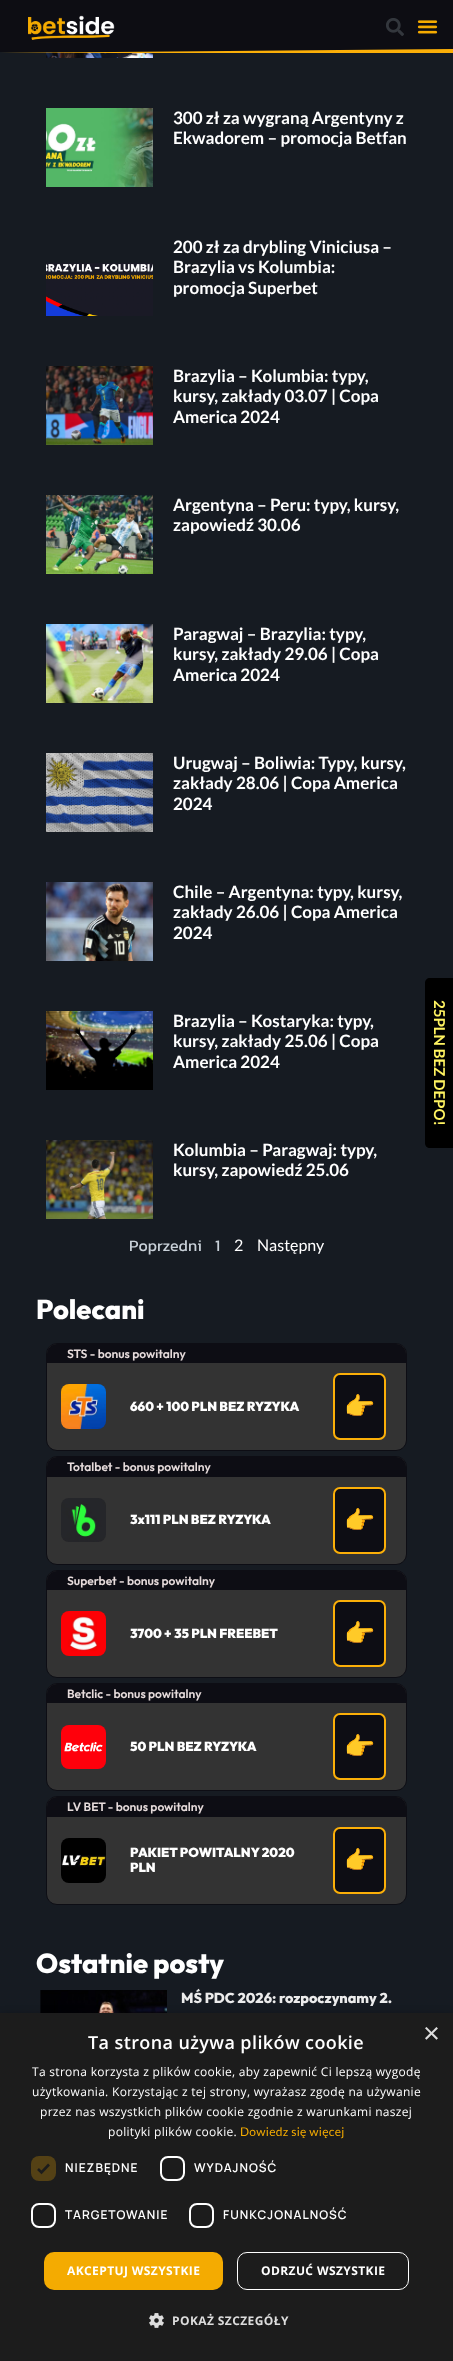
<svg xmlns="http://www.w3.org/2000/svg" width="453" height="2361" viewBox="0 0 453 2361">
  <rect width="100%" height="100%" fill="rgb(22,27,34)"/>
  <image x="46" y="52" width="107" height="6" href="pic1.png"/>
  <image x="46" y="108" width="107" height="79" href="pic2.png"/>
  <g font-family="Lato" font-size="17" font-weight="bold" fill="rgb(255,255,255)">
    <text>
      <tspan x="173" y="124">300 zł za wygraną Argentyny z</tspan>
      <tspan x="173" y="144">Ekwadorem – promocja Betfan</tspan>
    </text>
  </g>
  <image x="46" y="263" width="107" height="53" href="pic3.png"/>
  <g font-family="Lato" font-size="17" font-weight="bold" fill="rgb(255,255,255)">
    <text>
      <tspan x="173" y="253">200 zł za drybling Viniciusa –</tspan>
      <tspan x="173" y="273">Brazylia vs Kolumbia:</tspan>
      <tspan x="173" y="294">promocja Superbet</tspan>
    </text>
  </g>
  <image x="46" y="366" width="107" height="79" href="pic4.png"/>
  <g font-family="Lato" font-size="17" font-weight="bold" fill="rgb(255,255,255)">
    <text>
      <tspan x="173" y="382">Brazylia – Kolumbia: typy,</tspan>
      <tspan x="173" y="402">kursy, zakłady 03.07 | Copa</tspan>
      <tspan x="173" y="423">America 2024</tspan>
    </text>
  </g>
  <image x="46" y="495" width="107" height="79" href="pic5.png"/>
  <g font-family="Lato" font-size="17" font-weight="bold" fill="rgb(255,255,255)">
    <text>
      <tspan x="173" y="511">Argentyna – Peru: typy, kursy,</tspan>
      <tspan x="173" y="531">zapowiedź 30.06</tspan>
    </text>
  </g>
  <image x="46" y="624" width="107" height="79" href="pic6.png"/>
  <g font-family="Lato" font-size="17" font-weight="bold" fill="rgb(255,255,255)">
    <text>
      <tspan x="173" y="640">Paragwaj – Brazylia: typy,</tspan>
      <tspan x="173" y="660">kursy, zakłady 29.06 | Copa</tspan>
      <tspan x="173" y="681">America 2024</tspan>
    </text>
  </g>
  <image x="46" y="753" width="107" height="79" href="pic7.png"/>
  <g font-family="Lato" font-size="17" font-weight="bold" fill="rgb(255,255,255)">
    <text>
      <tspan x="173" y="769">Urugwaj – Boliwia: Typy, kursy,</tspan>
      <tspan x="173" y="789">zakłady 28.06 | Copa America</tspan>
      <tspan x="173" y="810">2024</tspan>
    </text>
  </g>
  <image x="46" y="882" width="107" height="79" href="pic8.png"/>
  <g font-family="Lato" font-size="17" font-weight="bold" fill="rgb(255,255,255)">
    <text>
      <tspan x="173" y="898">Chile – Argentyna: typy, kursy,</tspan>
      <tspan x="173" y="918">zakłady 26.06 | Copa America</tspan>
      <tspan x="173" y="939">2024</tspan>
    </text>
  </g>
  <image x="46" y="1011" width="107" height="79" href="pic9.png"/>
  <g font-family="Lato" font-size="17" font-weight="bold" fill="rgb(255,255,255)">
    <text>
      <tspan x="173" y="1027">Brazylia – Kostaryka: typy,</tspan>
      <tspan x="173" y="1047">kursy, zakłady 25.06 | Copa</tspan>
      <tspan x="173" y="1068">America 2024</tspan>
    </text>
  </g>
  <image x="46" y="1140" width="107" height="79" href="pic10.png"/>
  <g font-family="Lato" font-size="17" font-weight="bold" fill="rgb(255,255,255)">
    <text>
      <tspan x="173" y="1156">Kolumbia – Paragwaj: typy,</tspan>
      <tspan x="173" y="1176">kursy, zapowiedź 25.06</tspan>
    </text>
  </g>
  <g font-family="Kanit" font-size="16" fill="rgb(201,209,217)">
    <text x="129" y="1251">Poprzedni</text>
    <text x="215" y="1251">1</text>
  </g>
  <g font-family="Lato" font-size="16" fill="rgb(255,255,255)">
    <text x="234" y="1251">2</text>
    <text x="257" y="1251">Następny</text>
  </g>
  <text x="36" y="1319" font-family="Outfit" font-size="27.25" font-weight="800" fill="rgb(255,255,255)">Polecani</text>
  <rect x="46.5" y="1343.5" width="360" height="107" rx="10.5" fill="rgb(51,51,51)" stroke="rgb(13,13,20)"/>
  <path d="M57 1344H396C401.5 1344 406 1348.5 406 1354V1363H47V1354C47 1348.5 51.5 1344 57 1344Z" fill="rgb(13,13,20)"/>
  <text x="67" y="1358" font-family="Outfit" font-size="12" font-weight="600" fill="rgb(230,219,219)">STS - bonus powitalny</text>
  <image x="61" y="1384" width="45" height="45" href="pic11.png"/>
  <text x="130" y="1411" font-family="Outfit" font-size="13" font-weight="900" fill="rgb(255,255,255)">660 + 100 PLN BEZ RYZYKA</text>
  <rect x="334" y="1374" width="51" height="65" rx="6" fill="rgb(13,13,20)" stroke="rgb(251,175,8)" stroke-width="2"/>
  <text x="344" y="1415" font-family="Noto Color Emoji" font-size="25" font-weight="bold" fill="rgb(251,175,8)">👉</text>
  <rect x="46.5" y="1456.5" width="360" height="108" rx="10.5" fill="rgb(51,51,51)" stroke="rgb(13,13,20)"/>
  <path d="M57 1457H396C401.5 1457 406 1461.5 406 1467V1477H47V1467C47 1461.5 51.5 1457 57 1457Z" fill="rgb(13,13,20)"/>
  <text x="67" y="1471" font-family="Outfit" font-size="12" font-weight="600" fill="rgb(230,219,219)">Totalbet - bonus powitalny</text>
  <image x="61" y="1498" width="45" height="44" href="pic12.png"/>
  <text x="130" y="1524" font-family="Outfit" font-size="13" font-weight="900" fill="rgb(255,255,255)">3x111 PLN BEZ RYZYKA</text>
  <rect x="334" y="1488" width="51" height="65" rx="6" fill="rgb(13,13,20)" stroke="rgb(251,175,8)" stroke-width="2"/>
  <text x="344" y="1529" font-family="Noto Color Emoji" font-size="25" font-weight="bold" fill="rgb(251,175,8)">👉</text>
  <rect x="46.5" y="1570.5" width="360" height="107" rx="10.5" fill="rgb(51,51,51)" stroke="rgb(13,13,20)"/>
  <path d="M57 1571H396C401.5 1571 406 1575.5 406 1581V1590H47V1581C47 1575.5 51.5 1571 57 1571Z" fill="rgb(13,13,20)"/>
  <text x="67" y="1585" font-family="Outfit" font-size="12" font-weight="600" fill="rgb(230,219,219)">Superbet - bonus powitalny</text>
  <image x="61" y="1611" width="45" height="45" href="pic13.png"/>
  <text x="130" y="1638" font-family="Outfit" font-size="13" font-weight="900" fill="rgb(255,255,255)">3700 + 35 PLN FREEBET</text>
  <rect x="334" y="1601" width="51" height="65" rx="6" fill="rgb(13,13,20)" stroke="rgb(251,175,8)" stroke-width="2"/>
  <text x="344" y="1642" font-family="Noto Color Emoji" font-size="25" font-weight="bold" fill="rgb(251,175,8)">👉</text>
  <rect x="46.5" y="1683.5" width="360" height="107" rx="10.5" fill="rgb(51,51,51)" stroke="rgb(13,13,20)"/>
  <path d="M57 1684H396C401.5 1684 406 1688.5 406 1694V1703H47V1694C47 1688.5 51.5 1684 57 1684Z" fill="rgb(13,13,20)"/>
  <text x="67" y="1698" font-family="Outfit" font-size="12" font-weight="600" fill="rgb(230,219,219)">Betclic - bonus powitalny</text>
  <image x="61" y="1725" width="45" height="44" href="pic14.png"/>
  <text x="130" y="1751" font-family="Outfit" font-size="13" font-weight="900" fill="rgb(255,255,255)">50 PLN BEZ RYZYKA</text>
  <rect x="334" y="1714" width="51" height="65" rx="6" fill="rgb(13,13,20)" stroke="rgb(251,175,8)" stroke-width="2"/>
  <text x="344" y="1755" font-family="Noto Color Emoji" font-size="25" font-weight="bold" fill="rgb(251,175,8)">👉</text>
  <rect x="46.5" y="1796.5" width="360" height="108" rx="10.5" fill="rgb(51,51,51)" stroke="rgb(13,13,20)"/>
  <path d="M57 1797H396C401.5 1797 406 1801.5 406 1807V1817H47V1807C47 1801.5 51.5 1797 57 1797Z" fill="rgb(13,13,20)"/>
  <text x="67" y="1811" font-family="Outfit" font-size="12" font-weight="600" fill="rgb(230,219,219)">LV BET - bonus powitalny</text>
  <image x="61" y="1838" width="45" height="45" href="pic15.png"/>
  <g font-family="Outfit" font-size="13" font-weight="900" fill="rgb(255,255,255)">
    <text>
      <tspan x="130" y="1857">PAKIET POWITALNY 2020</tspan>
      <tspan x="130" y="1872">PLN</tspan>
    </text>
  </g>
  <rect x="334" y="1828" width="51" height="65" rx="6" fill="rgb(13,13,20)" stroke="rgb(251,175,8)" stroke-width="2"/>
  <text x="344" y="1869" font-family="Noto Color Emoji" font-size="25" font-weight="bold" fill="rgb(251,175,8)">👉</text>
  <text x="36" y="1973" font-family="Outfit" font-size="27.25" font-weight="800" fill="rgb(255,255,255)">Ostatnie posty</text>
  <image x="40" y="1990" width="127" height="23" href="pic16.png"/>
  <text x="181" y="2003" font-family="Outfit" font-size="14.4" font-weight="800" fill="rgb(236,236,236)">MŚ PDC 2026: rozpoczynamy 2.</text>
  <rect x="0" y="0" width="453" height="52" fill="rgb(13,13,19)"/>
  <image x="28" y="15" width="87" height="25" href="pic17.png"/>
  <image x="386" y="18" width="18" height="18" href="pic18.png"/>
  <image x="417" y="20" width="21" height="14" href="pic19.png"/>
  <path d="M0 53H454V49Z" fill="rgb(251,175,8)"/>
  <path d="M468 983V1143C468 1146 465 1148 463 1148H430C427 1148 425 1146 425 1143V983C425 980 427 978 430 978H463C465 978 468 980 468 983Z" fill="rgb(0,0,0)"/>
  <text x="434" y="1000" transform="rotate(90 434 1000)" font-family="Lato" font-size="15" font-weight="bold" fill="rgb(255,243,97)">25PLN BEZ DEPO!</text>
  <rect x="1" y="2015" width="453" height="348" fill="rgba(0,0,0,0.35)" filter="blur(4px)"/>
  <rect x="0" y="2013" width="453" height="348" fill="rgb(28,28,28)"/>
  <text x="423" y="2043" font-family="Liberation Sans" font-size="29" fill="rgb(221,221,221)">×</text>
  <text x="88" y="2049" font-family="Open Sans" font-size="18" font-weight="600" letter-spacing="0.4" fill="rgb(255,255,255)">Ta strona używa plików cookie</text>
  <g font-family="Open Sans" font-size="12" letter-spacing="0.3" fill="rgb(255,255,255)">
    <text>
      <tspan x="32" y="2076">Ta strona korzysta z plików cookie, aby zapewnić Ci lepszą wygodę</tspan>
      <tspan x="32" y="2096">użytkowania. Korzystając z tej strony, wyrażasz zgodę na używanie</tspan>
    </text>
    <text x="40" y="2116">przez nas wszystkich plików cookie zgodnie z warunkami naszej</text>
    <text x="108" y="2136">polityki plików cookie.</text>
  </g>
  <text x="240" y="2136" font-family="Lato" font-size="12" letter-spacing="0.3" fill="rgb(244,171,1)">Dowiedz się więcej</text>
  <rect x="31" y="2156" width="25" height="25" rx="8" fill="rgb(84,65,21)"/>
  <path d="M38 2169L41.5 2172.5L49 2164.5" fill="none" stroke="rgb(28,28,28)" stroke-width="2.6"/>
  <text x="65" y="2172" font-family="Manrope" font-size="12" font-weight="600" letter-spacing="1" fill="rgb(255,255,255)">NIEZBĘDNE</text>
  <rect x="161" y="2157" width="23" height="23" rx="7" fill="none" stroke="rgb(255,255,255)" stroke-width="2"/>
  <text x="194" y="2172" font-family="Manrope" font-size="12" font-weight="600" letter-spacing="1" fill="rgb(255,255,255)">WYDAJNOŚĆ</text>
  <rect x="32" y="2204" width="23" height="23" rx="7" fill="none" stroke="rgb(255,255,255)" stroke-width="2"/>
  <text x="65" y="2219" font-family="Manrope" font-size="12" font-weight="600" letter-spacing="1" fill="rgb(255,255,255)">TARGETOWANIE</text>
  <rect x="190" y="2204" width="23" height="23" rx="7" fill="none" stroke="rgb(255,255,255)" stroke-width="2"/>
  <text x="223" y="2219" font-family="Manrope" font-size="12" font-weight="600" letter-spacing="1" fill="rgb(255,255,255)">FUNKCJONALNOŚĆ</text>
  <rect x="44" y="2252" width="179" height="38" rx="10" fill="rgb(244,171,1)"/>
  <text x="67" y="2275" font-family="Open Sans" font-size="12" font-weight="bold" letter-spacing="0.4" fill="rgb(255,255,255)">AKCEPTUJ WSZYSTKIE</text>
  <rect x="237.5" y="2252.5" width="171" height="37" rx="9.5" fill="none" stroke="rgb(255,255,255)"/>
  <text x="261" y="2275" font-family="Open Sans" font-size="12" font-weight="bold" letter-spacing="0.4" fill="rgb(255,255,255)">ODRZUĆ WSZYSTKIE</text>
  <image x="149" y="2313" width="15" height="15" href="pic20.png"/>
  <text x="172" y="2325" font-family="Open Sans" font-size="12" font-weight="bold" letter-spacing="0.4" fill="rgb(221,221,221)">POKAŻ SZCZEGÓŁY</text>
</svg>
